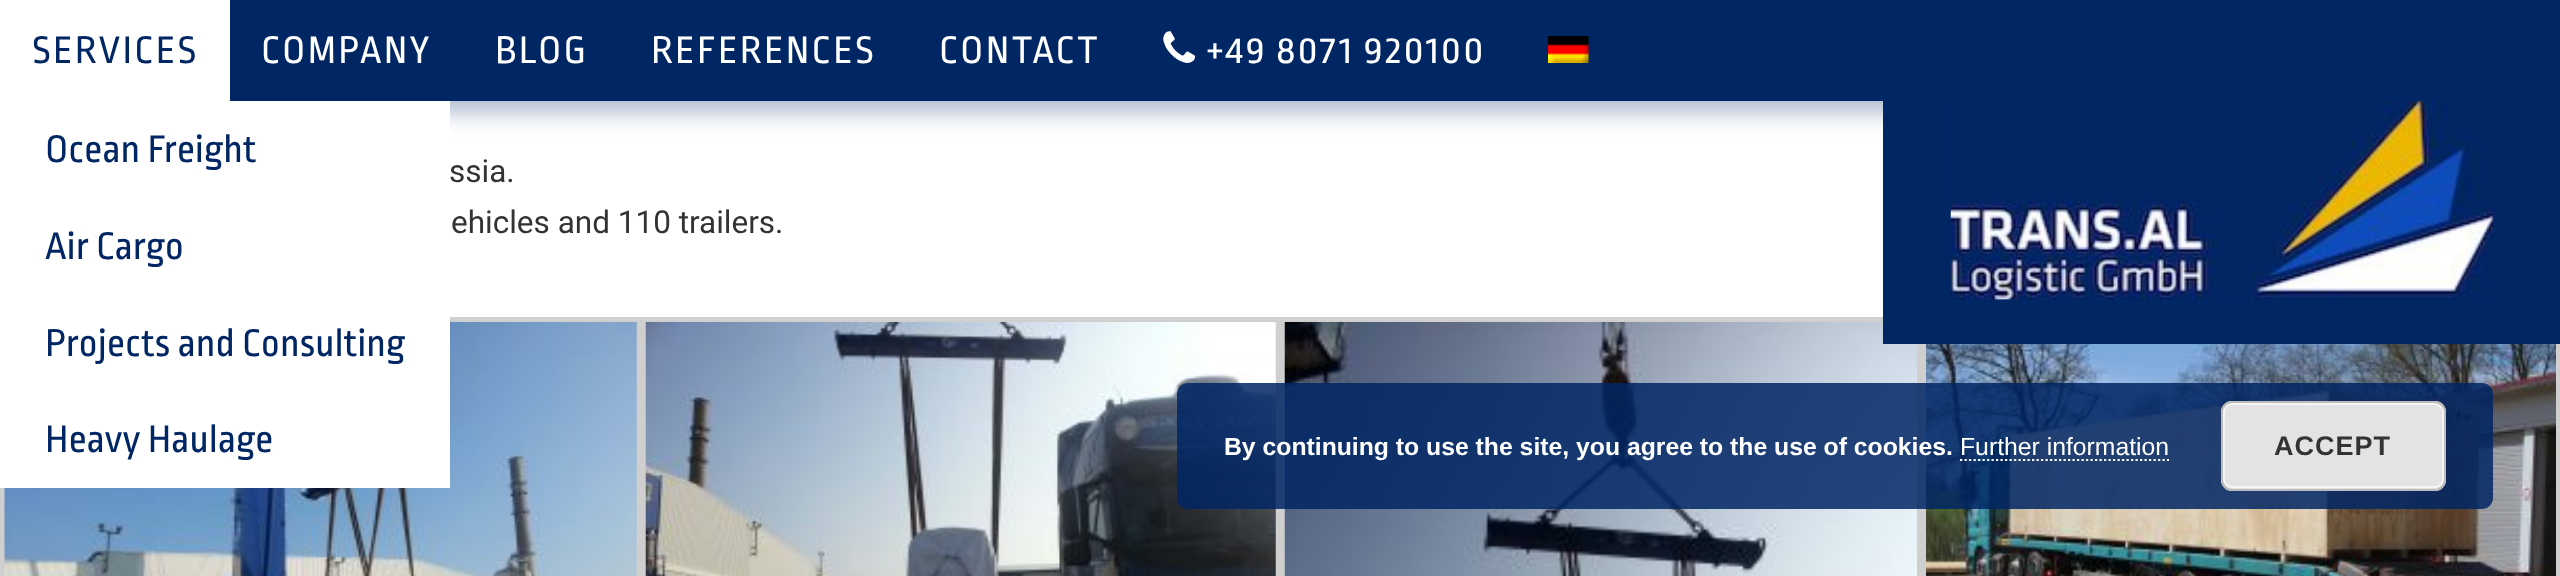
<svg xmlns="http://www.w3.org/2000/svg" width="2560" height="576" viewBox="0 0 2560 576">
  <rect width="100%" height="100%" fill="rgb(255,255,255)"/>
  <rect x="0" y="11" width="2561" height="102" fill="rgba(0,38,100,0.3)" filter="blur(11px)"/>
  <rect x="230" y="0" width="1653" height="101" fill="rgb(0,38,100)"/>
  <rect x="0" y="0" width="230" height="101" fill="rgb(255,255,255)"/>
  <text x="32" y="63" font-family="Ropa Sans" font-size="40.5" letter-spacing="2.25" fill="rgb(0,38,100)">SERVICES</text>
  <rect x="2.5" y="319.5" width="636" height="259" fill="none" stroke="rgb(207,207,207)" stroke-width="5"/>
  <image x="4" y="322" width="633" height="254" href="pic4.png"/>
  <rect x="0" y="101" width="450" height="387" fill="rgb(255,255,255)"/>
  <g font-family="Ropa Sans" font-size="40.5" fill="rgb(0,38,100)">
    <text x="45" y="162">Ocean Freight</text>
    <text x="45" y="259">Air Cargo</text>
    <text x="45" y="356">Projects and Consulting</text>
    <text x="45" y="452">Heavy Haulage</text>
  </g>
  <g font-family="Ropa Sans" font-size="40.5" letter-spacing="2.25" fill="rgb(255,255,255)">
    <text x="261" y="63">COMPANY</text>
    <text x="495" y="63">BLOG</text>
    <text x="651" y="63">REFERENCES</text>
    <text x="939" y="63">CONTACT</text>
  </g>
  <image x="1163" y="31" width="33" height="32" href="pic1.png"/>
  <text x="1207" y="63" font-family="Ropa Sans" font-size="40.5" letter-spacing="2.25" fill="rgb(255,255,255)">+49 8071 920100</text>
  <image x="1548" y="36" width="42" height="27" href="pic2.png"/>
  <rect x="1282.5" y="319.5" width="637" height="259" fill="none" stroke="rgb(207,207,207)" stroke-width="5"/>
  <image x="1284" y="322" width="633" height="254" href="pic6.png"/>
  <rect x="1924.5" y="319.5" width="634" height="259" fill="none" stroke="rgb(207,207,207)" stroke-width="5"/>
  <rect x="1883" y="0" width="677" height="344" fill="rgb(0,38,100)"/>
  <image x="1950" y="101" width="543" height="199" href="pic3.png"/>
  <g font-family="Roboto" font-size="31.5" fill="rgb(51,51,51)">
    <text x="449" y="182">ssia.</text>
    <text x="451" y="233">ehicles and 110 trailers.</text>
  </g>
  <rect x="643.5" y="319.5" width="634" height="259" fill="none" stroke="rgb(207,207,207)" stroke-width="5"/>
  <image x="645" y="322" width="631" height="254" href="pic5.png"/>
  <image x="1926" y="344" width="630" height="232" href="pic7.png"/>
  <rect x="1177" y="383" width="1316" height="126" rx="11" fill="rgba(0,38,100,0.85)"/>
  <text x="1224" y="455" font-family="Liberation Sans" font-size="24.75" font-weight="bold" fill="rgb(255,255,255)">By continuing to use the site, you agree to the use of cookies.</text>
  <text x="1960" y="455" font-family="Liberation Sans" font-size="24.75" fill="rgb(255,255,255)">Further information</text>
  <path d="M1960 460H2169" fill="none" stroke="rgb(255,255,255)" stroke-width="2.2" stroke-dasharray="2.25 2.25"/>
  <rect x="2221" y="401" width="225" height="90" rx="11" fill="rgb(227,227,227)"/>
  <rect x="2224" y="404" width="219" height="83" rx="8" fill="none" stroke="rgb(246,246,246)" stroke-width="2"/>
  <rect x="2222" y="402" width="223" height="88" rx="10" fill="none" stroke="rgb(187,187,187)" stroke-width="2"/>
  <text x="2274" y="455" font-family="Liberation Sans" font-size="27" font-weight="bold" letter-spacing="1" fill="rgb(51,51,51)">ACCEPT</text>
</svg>
